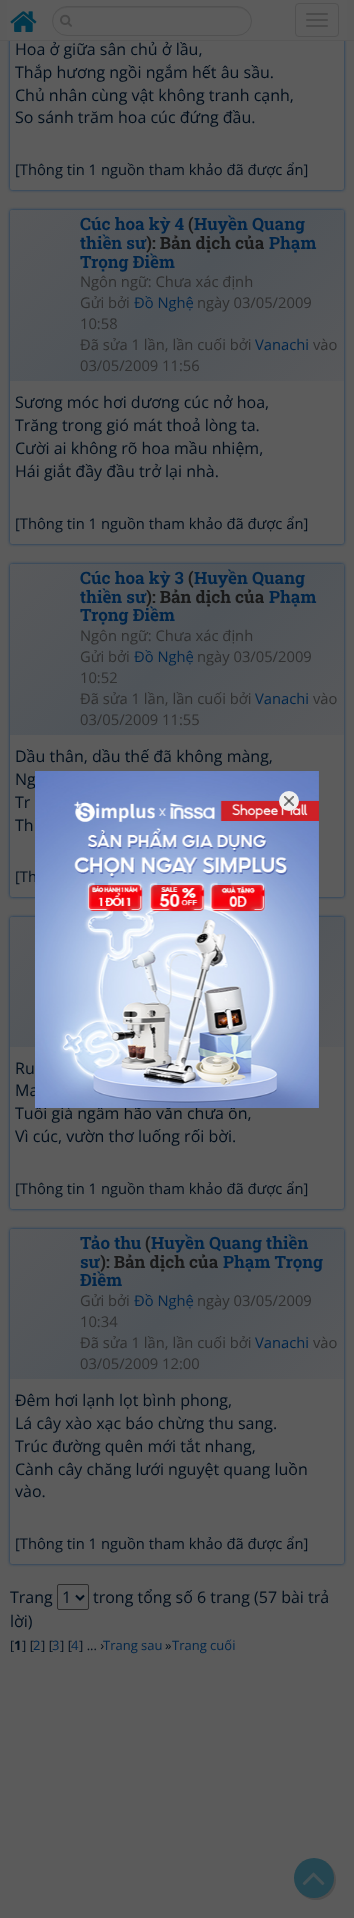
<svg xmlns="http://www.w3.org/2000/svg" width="354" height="1918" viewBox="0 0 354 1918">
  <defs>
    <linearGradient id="g1" gradientUnits="userSpaceOnUse" x1="303" y1="422" x2="51" y2="169"><stop offset="0" stop-color="rgb(88,89,91)"/><stop offset="0.5" stop-color="rgb(79,84,89)"/><stop offset="1" stop-color="rgb(88,89,91)"/></linearGradient>
    <linearGradient id="g2" gradientUnits="userSpaceOnUse" x1="303" y1="776" x2="51" y2="523"><stop offset="0" stop-color="rgb(88,89,91)"/><stop offset="0.5" stop-color="rgb(79,84,89)"/><stop offset="1" stop-color="rgb(88,89,91)"/></linearGradient>
    <linearGradient id="g3" gradientUnits="userSpaceOnUse" x1="293" y1="1098" x2="61" y2="866"><stop offset="0" stop-color="rgb(88,89,91)"/><stop offset="0.5" stop-color="rgb(79,84,89)"/><stop offset="1" stop-color="rgb(88,89,91)"/></linearGradient>
    <linearGradient id="g4" gradientUnits="userSpaceOnUse" x1="298" y1="1425" x2="56" y2="1183"><stop offset="0" stop-color="rgb(88,89,91)"/><stop offset="0.5" stop-color="rgb(79,84,89)"/><stop offset="1" stop-color="rgb(88,89,91)"/></linearGradient>
  </defs>
  <rect width="100%" height="100%" fill="rgb(91,91,91)"/>
  <rect x="10" y="-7" width="334" height="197" rx="2" fill="rgb(10,50,92)" filter="blur(1.5px)"/>
  <rect x="10" y="-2" width="334" height="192" rx="2" fill="rgb(92,92,92)"/>
  <rect x="7" y="0" width="340" height="40" fill="rgb(92,92,92)"/>
  <rect x="0" y="40" width="354" height="1" fill="rgb(86,86,86)"/>
  <image x="10" y="11" width="27" height="21" href="pic1.png"/>
  <path d="M67 8H237C245 8 251 14 251 21C252 0 218 7 209 7H95C86 7 52 0 53 21C53 14 59 8 67 8Z" fill="rgb(85,85,85)"/>
  <rect x="52.5" y="6.5" width="199" height="29" rx="14.5" fill="none" stroke="rgb(80,80,80)"/>
  <image x="60" y="14" width="12" height="13" href="pic2.png"/>
  <rect x="295.5" y="3.5" width="43" height="33" rx="3.5" fill="none" stroke="rgb(80,80,80)"/>
  <rect x="306" y="13" width="22" height="2" rx="1" fill="rgb(73,73,73)"/>
  <rect x="306" y="19" width="22" height="2" rx="1" fill="rgb(73,73,73)"/>
  <rect x="306" y="25" width="22" height="2" rx="1" fill="rgb(73,73,73)"/>
  <rect x="296" y="1860" width="40" height="40" rx="20" fill="rgb(78,78,78)" filter="blur(0.5px)"/>
  <circle cx="314" cy="1878" r="20" fill="rgb(37,70,81)"/>
  <image x="302" y="1872" width="23" height="14" href="pic3.png"/>
  <g font-family="Open Sans" font-size="16" fill="rgb(0,14,28)">
    <text>
      <tspan x="15" y="55">Hoa ở giữa sân chủ ở lầu,</tspan>
      <tspan x="15" y="78">Thắp hương ngồi ngắm hết âu sầu.</tspan>
      <tspan x="15" y="101">Chủ nhân cùng vật không tranh cạnh,</tspan>
      <tspan x="15" y="123">So sánh trăm hoa cúc đứng đầu.</tspan>
    </text>
  </g>
  <text x="15" y="175" font-family="Open Sans" font-size="14.75" fill="rgb(0,14,28)">[Thông tin 1 nguồn tham khảo đã được ẩn]</text>
  <rect x="10" y="210" width="334" height="334" rx="2" fill="rgb(10,50,92)" filter="blur(1.5px)"/>
  <rect x="10" y="210" width="334" height="334" rx="2" fill="rgb(92,92,92)"/>
  <path d="M12 210H342C343 210 344 211 344 212V381H10V212C10 211 11 210 12 210Z" fill="url(#g1)"/>
  <text x="80" y="230" font-family="Roboto Slab" font-size="17" font-weight="bold" fill="rgb(0,37,73)">Cúc hoa kỳ 4</text>
  <text x="188" y="230" font-family="Roboto Slab" font-size="17" font-weight="bold" fill="rgb(25,25,25)">(</text>
  <g font-family="Roboto Slab" font-size="17" font-weight="bold" fill="rgb(0,37,73)">
    <text x="194" y="230">Huyền Quang</text>
    <text x="80" y="249">thiền sư</text>
  </g>
  <text x="146" y="249" font-family="Roboto Slab" font-size="17" font-weight="bold" fill="rgb(25,25,25)">): Bản dịch của</text>
  <g font-family="Roboto Slab" font-size="17" font-weight="bold" fill="rgb(0,37,73)">
    <text x="269" y="249">Phạm</text>
    <text x="80" y="268">Trọng Điềm</text>
  </g>
  <g font-family="Open Sans" font-size="14.75" fill="rgb(46,46,46)">
    <text>
      <tspan x="80" y="287">Ngôn ngữ: Chưa xác định</tspan>
      <tspan x="80" y="308">Gửi bởi</tspan>
    </text>
  </g>
  <text x="134" y="308" font-family="Open Sans" font-size="14.75" fill="rgb(0,37,73)">Đồ Nghệ</text>
  <g font-family="Open Sans" font-size="14.75" fill="rgb(46,46,46)">
    <text x="197" y="308">ngày 03/05/2009</text>
    <text>
      <tspan x="80" y="329">10:58</tspan>
      <tspan x="80" y="350">Đã sửa 1 lần, lần cuối bởi</tspan>
    </text>
  </g>
  <text x="255" y="350" font-family="Open Sans" font-size="14.75" fill="rgb(0,37,73)">Vanachi</text>
  <g font-family="Open Sans" font-size="14.75" fill="rgb(46,46,46)">
    <text x="313" y="350">vào</text>
    <text x="80" y="371">03/05/2009 11:56</text>
  </g>
  <g font-family="Open Sans" font-size="16" fill="rgb(0,14,28)">
    <text>
      <tspan x="15" y="408">Sương móc hơi dương cúc nở hoa,</tspan>
      <tspan x="15" y="431">Trăng trong gió mát thoả lòng ta.</tspan>
      <tspan x="15" y="454">Cười ai không rõ hoa mầu nhiệm,</tspan>
      <tspan x="15" y="477">Hái giắt đầy đầu trở lại nhà.</tspan>
    </text>
  </g>
  <text x="15" y="529" font-family="Open Sans" font-size="14.75" fill="rgb(0,14,28)">[Thông tin 1 nguồn tham khảo đã được ẩn]</text>
  <rect x="10" y="564" width="334" height="333" rx="2" fill="rgb(10,50,92)" filter="blur(1.5px)"/>
  <rect x="10" y="564" width="334" height="333" rx="2" fill="rgb(92,92,92)"/>
  <path d="M12 564H342C343 564 344 565 344 566V735H10V566C10 565 11 564 12 564Z" fill="url(#g2)"/>
  <text x="80" y="584" font-family="Roboto Slab" font-size="17" font-weight="bold" fill="rgb(0,37,73)">Cúc hoa kỳ 3</text>
  <text x="188" y="584" font-family="Roboto Slab" font-size="17" font-weight="bold" fill="rgb(25,25,25)">(</text>
  <g font-family="Roboto Slab" font-size="17" font-weight="bold" fill="rgb(0,37,73)">
    <text x="194" y="584">Huyền Quang</text>
    <text x="80" y="603">thiền sư</text>
  </g>
  <text x="146" y="603" font-family="Roboto Slab" font-size="17" font-weight="bold" fill="rgb(25,25,25)">): Bản dịch của</text>
  <g font-family="Roboto Slab" font-size="17" font-weight="bold" fill="rgb(0,37,73)">
    <text x="269" y="603">Phạm</text>
    <text x="80" y="621">Trọng Điềm</text>
  </g>
  <g font-family="Open Sans" font-size="14.75" fill="rgb(46,46,46)">
    <text>
      <tspan x="80" y="641">Ngôn ngữ: Chưa xác định</tspan>
      <tspan x="80" y="662">Gửi bởi</tspan>
    </text>
  </g>
  <text x="134" y="662" font-family="Open Sans" font-size="14.75" fill="rgb(0,37,73)">Đồ Nghệ</text>
  <g font-family="Open Sans" font-size="14.75" fill="rgb(46,46,46)">
    <text x="197" y="662">ngày 03/05/2009</text>
    <text>
      <tspan x="80" y="683">10:52</tspan>
      <tspan x="80" y="704">Đã sửa 1 lần, lần cuối bởi</tspan>
    </text>
  </g>
  <text x="255" y="704" font-family="Open Sans" font-size="14.75" fill="rgb(0,37,73)">Vanachi</text>
  <g font-family="Open Sans" font-size="14.75" fill="rgb(46,46,46)">
    <text x="313" y="704">vào</text>
    <text x="80" y="725">03/05/2009 11:55</text>
  </g>
  <g font-family="Open Sans" font-size="16" fill="rgb(0,14,28)">
    <text>
      <tspan x="15" y="762">Dầu thân, dầu thế đã không màng,</tspan>
      <tspan x="15" y="785">Ng</tspan>
      <tspan x="15" y="808">Tr</tspan>
      <tspan x="15" y="831">Th</tspan>
    </text>
  </g>
  <text x="15" y="882" font-family="Open Sans" font-size="14.75" fill="rgb(0,14,28)">[Th</text>
  <rect x="10" y="917" width="334" height="292" rx="2" fill="rgb(10,50,92)" filter="blur(1.5px)"/>
  <rect x="10" y="917" width="334" height="292" rx="2" fill="rgb(92,92,92)"/>
  <path d="M12 917H342C343 917 344 918 344 919V1047H10V919C10 918 11 917 12 917Z" fill="url(#g3)"/>
  <g font-family="Open Sans" font-size="16" fill="rgb(0,14,28)">
    <text>
      <tspan x="15" y="1074">Ru</tspan>
      <tspan x="15" y="1096">Ma</tspan>
      <tspan x="15" y="1119">Tuổi già ngâm hão văn chưa ổn,</tspan>
      <tspan x="15" y="1142">Vì cúc, vườn thơ luống rối bời.</tspan>
    </text>
  </g>
  <text x="15" y="1194" font-family="Open Sans" font-size="14.75" fill="rgb(0,14,28)">[Thông tin 1 nguồn tham khảo đã được ẩn]</text>
  <rect x="10" y="1229" width="334" height="335" rx="2" fill="rgb(10,50,92)" filter="blur(1.5px)"/>
  <rect x="10" y="1229" width="334" height="335" rx="2" fill="rgb(92,92,92)"/>
  <path d="M12 1229H342C343 1229 344 1230 344 1231V1379H10V1231C10 1230 11 1229 12 1229Z" fill="url(#g4)"/>
  <text x="80" y="1249" font-family="Roboto Slab" font-size="17" font-weight="bold" fill="rgb(0,37,73)">Tảo thu</text>
  <text x="145" y="1249" font-family="Roboto Slab" font-size="17" font-weight="bold" fill="rgb(25,25,25)">(</text>
  <g font-family="Roboto Slab" font-size="17" font-weight="bold" fill="rgb(0,37,73)">
    <text x="151" y="1249">Huyền Quang thiền</text>
    <text x="80" y="1268">sư</text>
  </g>
  <text x="100" y="1268" font-family="Roboto Slab" font-size="17" font-weight="bold" fill="rgb(25,25,25)">): Bản dịch của</text>
  <g font-family="Roboto Slab" font-size="17" font-weight="bold" fill="rgb(0,37,73)">
    <text x="223" y="1268">Phạm Trọng</text>
    <text x="80" y="1286">Điềm</text>
  </g>
  <text x="80" y="1306" font-family="Open Sans" font-size="14.75" fill="rgb(46,46,46)">Gửi bởi</text>
  <text x="134" y="1306" font-family="Open Sans" font-size="14.75" fill="rgb(0,37,73)">Đồ Nghệ</text>
  <g font-family="Open Sans" font-size="14.75" fill="rgb(46,46,46)">
    <text x="197" y="1306">ngày 03/05/2009</text>
    <text>
      <tspan x="80" y="1327">10:34</tspan>
      <tspan x="80" y="1348">Đã sửa 1 lần, lần cuối bởi</tspan>
    </text>
  </g>
  <text x="255" y="1348" font-family="Open Sans" font-size="14.75" fill="rgb(0,37,73)">Vanachi</text>
  <g font-family="Open Sans" font-size="14.75" fill="rgb(46,46,46)">
    <text x="313" y="1348">vào</text>
    <text x="80" y="1369">03/05/2009 12:00</text>
  </g>
  <g font-family="Open Sans" font-size="16" fill="rgb(0,14,28)">
    <text>
      <tspan x="15" y="1406">Đêm hơi lạnh lọt bình phong,</tspan>
      <tspan x="15" y="1429">Lá cây xào xạc báo chừng thu sang.</tspan>
      <tspan x="15" y="1452">Trúc đường quên mới tắt nhang,</tspan>
      <tspan x="15" y="1475">Cành cây chăng lưới nguyệt quang luồn</tspan>
      <tspan x="15" y="1497">vào.</tspan>
    </text>
  </g>
  <text x="15" y="1549" font-family="Open Sans" font-size="14.75" fill="rgb(0,14,28)">[Thông tin 1 nguồn tham khảo đã được ẩn]</text>
  <text x="10" y="1603" font-family="Open Sans" font-size="16" fill="rgb(0,14,28)">Trang</text>
  <rect x="57.5" y="1584.5" width="31" height="25" rx="1.5" fill="none" stroke="rgb(43,43,43)"/>
  <path d="M76 1595.5L80 1599.5L84 1595.5" fill="none" stroke="rgb(0,14,28)" stroke-width="2"/>
  <g font-family="Open Sans" font-size="16" fill="rgb(0,14,28)">
    <text x="62" y="1603">1</text>
    <text x="93" y="1603">trong tổng số 6 trang (57 bài trả</text>
    <text x="10" y="1627">lời)</text>
  </g>
  <text x="10" y="1650" font-family="Open Sans" font-size="13" fill="rgb(0,14,28)">[</text>
  <text x="14" y="1650" font-family="Open Sans" font-size="13" font-weight="bold" fill="rgb(0,14,28)">1</text>
  <text x="22" y="1650" font-family="Open Sans" font-size="13" fill="rgb(0,14,28)">] [</text>
  <text x="33" y="1650" font-family="Open Sans" font-size="13" fill="rgb(0,37,73)">2</text>
  <text x="41" y="1650" font-family="Open Sans" font-size="13" fill="rgb(0,14,28)">] [</text>
  <text x="52" y="1650" font-family="Open Sans" font-size="13" fill="rgb(0,37,73)">3</text>
  <text x="60" y="1650" font-family="Open Sans" font-size="13" fill="rgb(0,14,28)">] [</text>
  <text x="71" y="1650" font-family="Open Sans" font-size="13" fill="rgb(0,37,73)">4</text>
  <text x="79" y="1650" font-family="Open Sans" font-size="13" fill="rgb(0,14,28)">] ... ›</text>
  <text x="103" y="1650" font-family="Open Sans" font-size="13" fill="rgb(0,37,73)">Trang sau</text>
  <text x="165" y="1650" font-family="Open Sans" font-size="13" fill="rgb(0,14,28)">»</text>
  <text x="172" y="1650" font-family="Open Sans" font-size="13" fill="rgb(0,37,73)">Trang cuối</text>
  <image x="35" y="771" width="284" height="337" href="pic4.png"/>
  <circle cx="289" cy="801" r="8.5" fill="rgb(239,239,239)" stroke="rgb(239,239,239)" stroke-width="3"/>
  <image x="284" y="796" width="10" height="10" href="pic5.png"/>
</svg>
